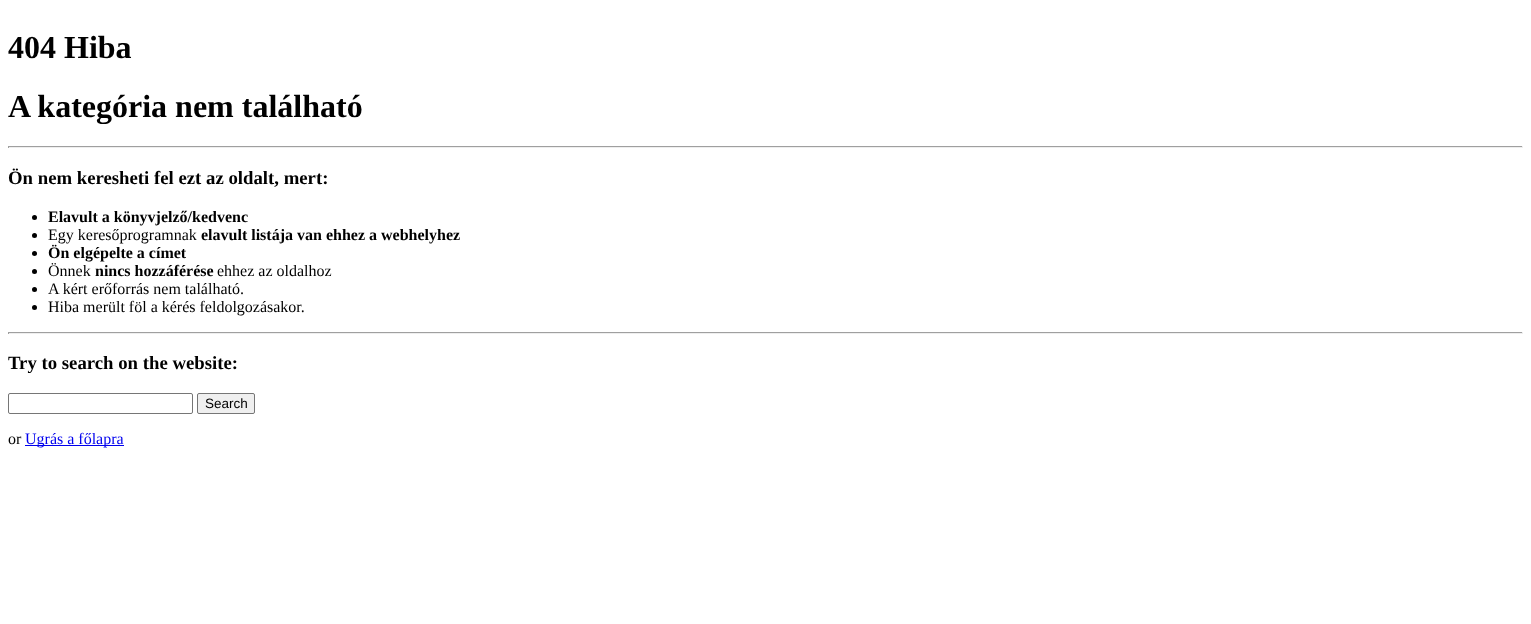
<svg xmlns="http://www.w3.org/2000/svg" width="1531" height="624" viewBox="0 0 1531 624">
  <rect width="100%" height="100%" fill="rgb(255,255,255)"/>
  <g font-family="Liberation Serif" font-size="32" font-weight="bold" fill="rgb(0,0,0)">
    <text>
      <tspan x="8" y="58">404 Hiba</tspan>
      <tspan x="8" y="117">A kategória nem található</tspan>
    </text>
  </g>
  <rect x="8" y="146" width="1515" height="1" fill="rgb(159,159,159)"/>
  <rect x="1522" y="146" width="1" height="2" fill="rgb(238,238,238)"/>
  <rect x="8" y="147" width="1515" height="1" fill="rgb(238,238,238)"/>
  <rect x="8" y="146" width="1" height="2" fill="rgb(159,159,159)"/>
  <text x="8" y="184" font-family="Liberation Serif" font-size="18.75" font-weight="bold" fill="rgb(0,0,0)">Ön nem keresheti fel ezt az oldalt, mert:</text>
  <circle cx="34.5" cy="217.5" r="2.5" fill="rgb(0,0,0)"/>
  <text x="48" y="222" font-family="Liberation Serif" font-size="16" font-weight="bold" fill="rgb(0,0,0)">Elavult a könyvjelző/kedvenc</text>
  <circle cx="34.5" cy="235.5" r="2.5" fill="rgb(0,0,0)"/>
  <text x="48" y="240" font-family="Liberation Serif" font-size="16" fill="rgb(0,0,0)">Egy keresőprogramnak</text>
  <text x="201" y="240" font-family="Liberation Serif" font-size="16" font-weight="bold" fill="rgb(0,0,0)">elavult listája van ehhez a webhelyhez</text>
  <circle cx="34.5" cy="253.5" r="2.5" fill="rgb(0,0,0)"/>
  <text x="48" y="258" font-family="Liberation Serif" font-size="16" font-weight="bold" fill="rgb(0,0,0)">Ön elgépelte a címet</text>
  <circle cx="34.5" cy="271.5" r="2.5" fill="rgb(0,0,0)"/>
  <text x="48" y="276" font-family="Liberation Serif" font-size="16" fill="rgb(0,0,0)">Önnek</text>
  <text x="95" y="276" font-family="Liberation Serif" font-size="16" font-weight="bold" fill="rgb(0,0,0)">nincs hozzáférése</text>
  <text x="217" y="276" font-family="Liberation Serif" font-size="16" fill="rgb(0,0,0)">ehhez az oldalhoz</text>
  <circle cx="34.5" cy="289.5" r="2.5" fill="rgb(0,0,0)"/>
  <text x="48" y="294" font-family="Liberation Serif" font-size="16" fill="rgb(0,0,0)">A kért erőforrás nem található.</text>
  <circle cx="34.5" cy="307.5" r="2.5" fill="rgb(0,0,0)"/>
  <text x="48" y="312" font-family="Liberation Serif" font-size="16" fill="rgb(0,0,0)">Hiba merült föl a kérés feldolgozásakor.</text>
  <rect x="8" y="332" width="1515" height="1" fill="rgb(159,159,159)"/>
  <rect x="1522" y="332" width="1" height="2" fill="rgb(238,238,238)"/>
  <rect x="8" y="333" width="1515" height="1" fill="rgb(238,238,238)"/>
  <rect x="8" y="332" width="1" height="2" fill="rgb(159,159,159)"/>
  <text x="8" y="369" font-family="Liberation Serif" font-size="18.75" font-weight="bold" fill="rgb(0,0,0)">Try to search on the website:</text>
  <rect x="8.5" y="393.5" width="184" height="20" rx="1.5" fill="none" stroke="rgb(118,118,118)"/>
  <rect x="197.5" y="393.5" width="57" height="20" rx="1.5" fill="rgb(239,239,239)" stroke="rgb(118,118,118)"/>
  <text x="205" y="408" font-family="Liberation Sans" font-size="13.5" fill="rgb(0,0,0)">Search</text>
  <text x="8" y="444" font-family="Liberation Serif" font-size="16" fill="rgb(0,0,0)">or</text>
  <rect x="25" y="445" width="99" height="1" fill="rgb(0,0,238)"/>
  <text x="25" y="444" font-family="Liberation Serif" font-size="16" fill="rgb(0,0,238)">Ugrás a főlapra</text>
</svg>
